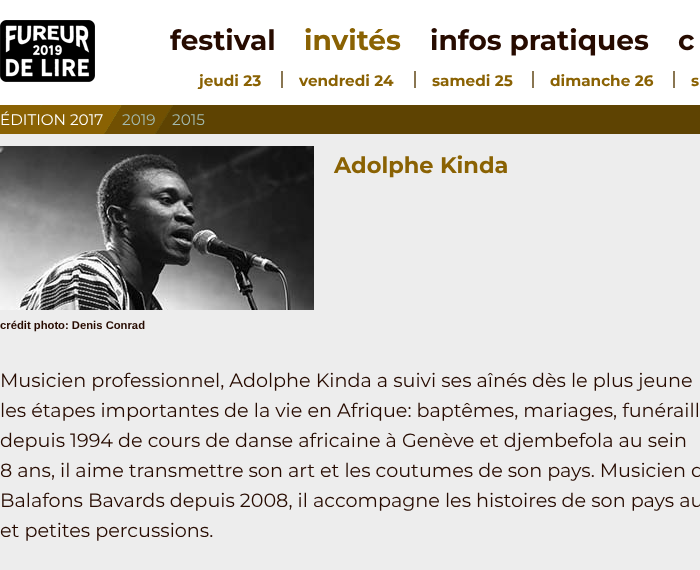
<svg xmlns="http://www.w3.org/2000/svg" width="700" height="570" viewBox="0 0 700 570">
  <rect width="100%" height="100%" fill="rgb(237,237,237)"/>
  <rect x="0" y="0" width="700" height="105" fill="rgb(255,255,255)"/>
  <image x="0" y="20" width="95" height="62" href="pic1.png"/>
  <text x="170" y="50" font-family="Montserrat" font-size="28" font-weight="bold" fill="rgb(39,11,0)">festival</text>
  <text x="304" y="50" font-family="Montserrat" font-size="28" font-weight="bold" fill="rgb(138,98,3)">invités</text>
  <g font-family="Montserrat" font-size="28" font-weight="bold" fill="rgb(39,11,0)">
    <text x="430" y="50">infos pratiques</text>
    <text x="678" y="50">c</text>
  </g>
  <g font-family="Montserrat" font-size="15.25" font-weight="bold" fill="rgb(138,98,3)">
    <text x="199" y="86">jeudi 23</text>
    <text x="299" y="86">vendredi 24</text>
  </g>
  <rect x="281" y="71" width="2" height="17" fill="rgb(137,118,82)"/>
  <text x="432" y="86" font-family="Montserrat" font-size="15.25" font-weight="bold" fill="rgb(138,98,3)">samedi 25</text>
  <rect x="414" y="71" width="2" height="17" fill="rgb(137,118,82)"/>
  <text x="550" y="86" font-family="Montserrat" font-size="15.25" font-weight="bold" fill="rgb(138,98,3)">dimanche 26</text>
  <rect x="532" y="71" width="2" height="17" fill="rgb(137,118,82)"/>
  <text x="691" y="86" font-family="Montserrat" font-size="15.25" font-weight="bold" fill="rgb(138,98,3)">s</text>
  <rect x="673" y="71" width="2" height="17" fill="rgb(137,118,82)"/>
  <rect x="173" y="105" width="527" height="29" fill="rgb(94,67,2)"/>
  <image x="0" y="105" width="173" height="29" href="pic2.png"/>
  <text x="0" y="125" font-family="Montserrat" font-size="15.25" fill="rgb(255,255,255)">ÉDITION 2017</text>
  <g font-family="Montserrat" font-size="15.25" fill="rgb(163,186,175)">
    <text x="122" y="125">2019</text>
    <text x="172" y="125">2015</text>
  </g>
  <text x="334" y="173" font-family="Montserrat" font-size="22.5" font-weight="bold" fill="rgb(138,98,3)">Adolphe Kinda</text>
  <image x="0" y="146" width="314" height="164" href="pic3.png"/>
  <text x="0" y="329" font-family="Liberation Sans" font-size="11.25" font-weight="bold" fill="rgb(39,11,0)">crédit photo: Denis Conrad</text>
  <g font-family="Montserrat" font-size="19.2" fill="rgb(39,11,0)">
    <text>
      <tspan x="0" y="387">Musicien professionnel, Adolphe Kinda a suivi ses aînés dès le plus jeune</tspan>
      <tspan x="0" y="417">les étapes importantes de la vie en Afrique: baptêmes, mariages, funéraill</tspan>
      <tspan x="0" y="447">depuis 1994 de cours de danse africaine à Genève et djembefola au sein</tspan>
      <tspan x="0" y="477">8 ans, il aime transmettre son art et les coutumes de son pays. Musicien d</tspan>
      <tspan x="0" y="507">Balafons Bavards depuis 2008, il accompagne les histoires de son pays au</tspan>
      <tspan x="0" y="537">et petites percussions.</tspan>
    </text>
  </g>
</svg>
